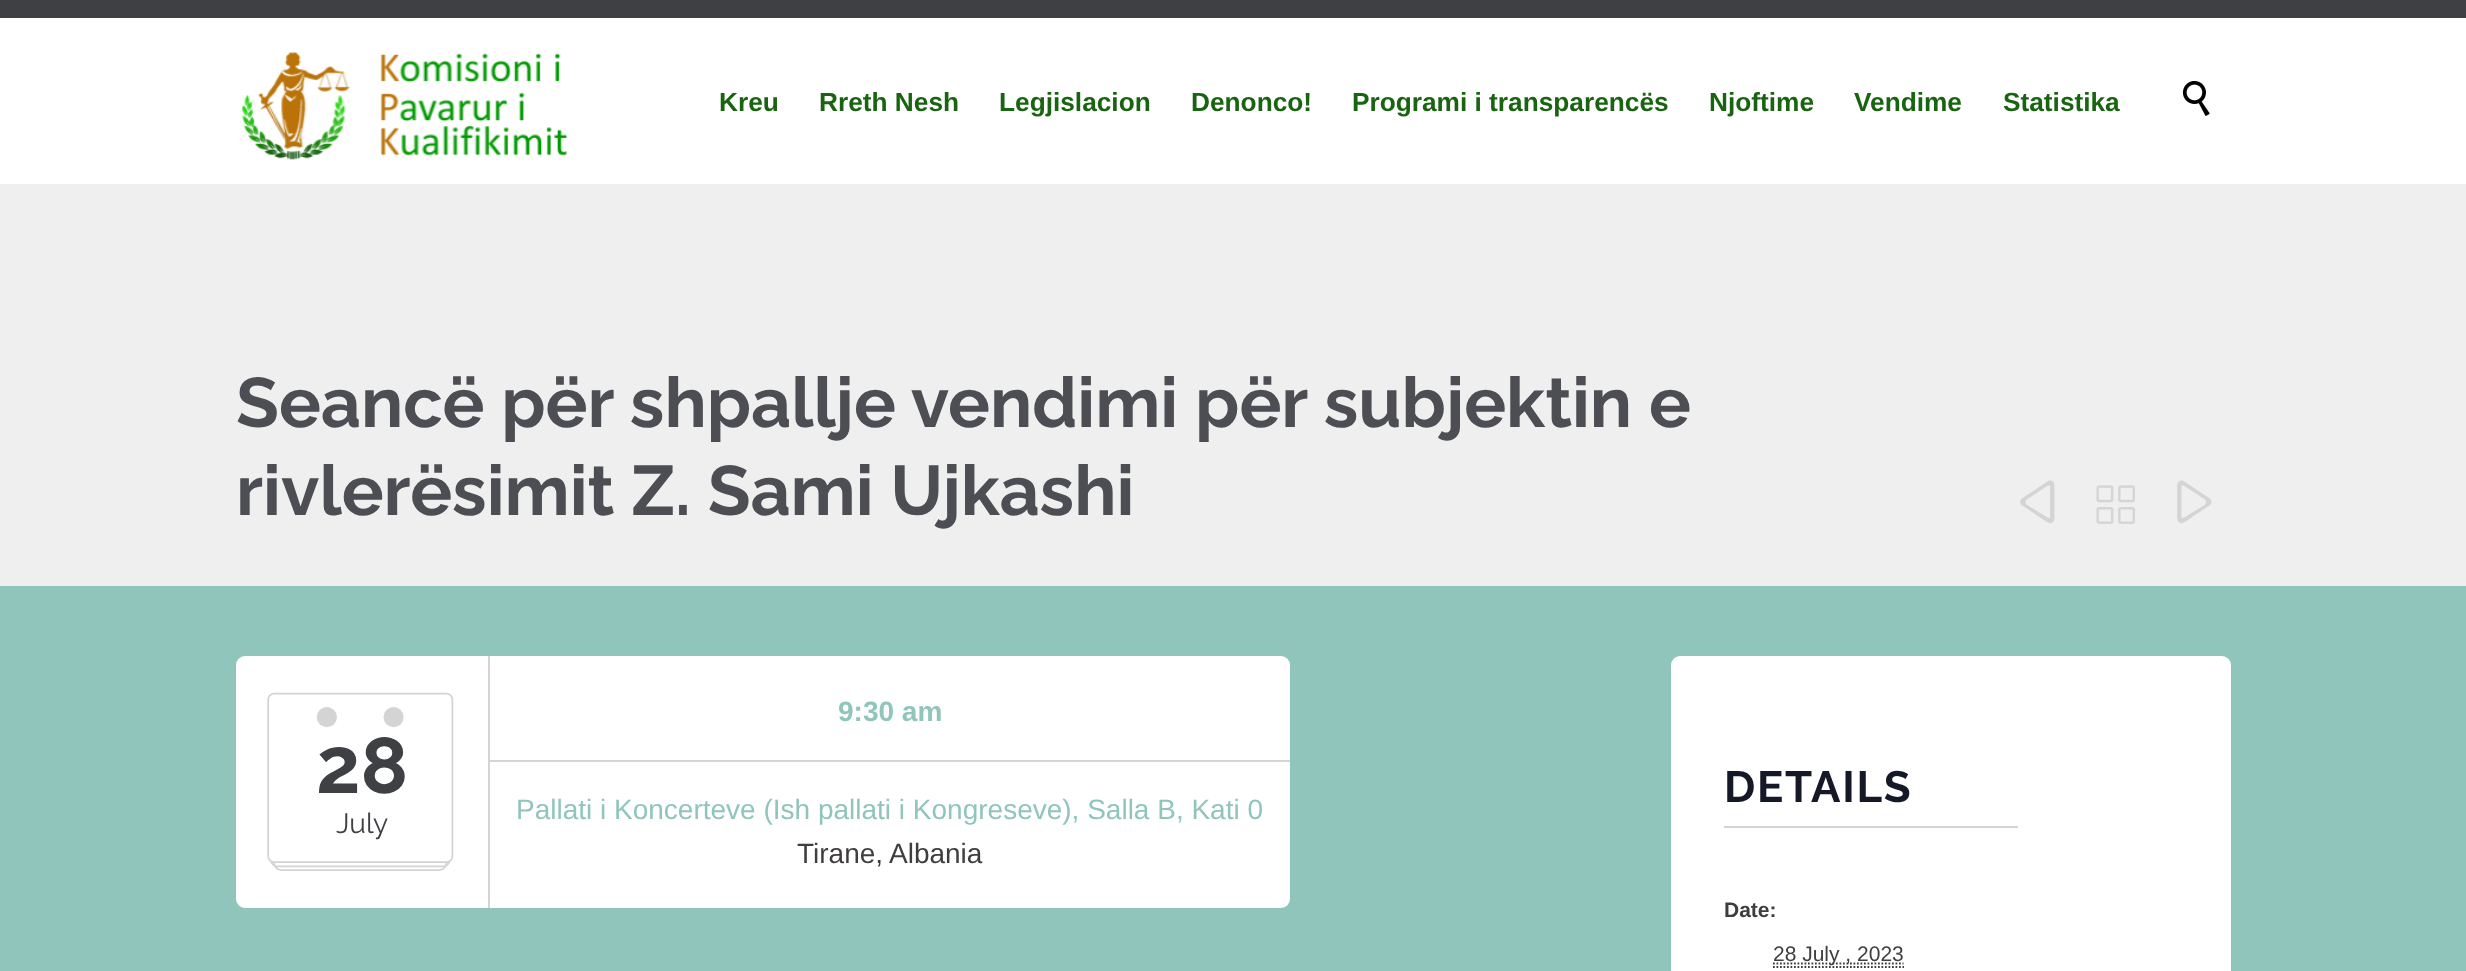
<svg xmlns="http://www.w3.org/2000/svg" width="2466" height="971" viewBox="0 0 2466 971">
  <rect width="100%" height="100%" fill="rgb(255,255,255)"/>
  <rect x="0" y="0" width="2466" height="18" fill="rgb(62,64,67)"/>
  <image x="242" y="52" width="326" height="108" href="pic1.png"/>
  <g font-family="Liberation Sans" font-size="26.25" font-weight="bold" fill="rgb(25,100,16)">
    <text x="719" y="111">Kreu</text>
    <text x="819" y="111">Rreth Nesh</text>
    <text x="999" y="111">Legjislacion</text>
    <text x="1191" y="111">Denonco!</text>
    <text x="1352" y="111">Programi i transparencës</text>
    <text x="1709" y="111">Njoftime</text>
    <text x="1854" y="111">Vendime</text>
    <text x="2003" y="111">Statistika</text>
  </g>
  <image x="2182" y="80" width="28" height="36" href="pic2.png"/>
  <rect x="0" y="184" width="2466" height="402" fill="rgb(239,239,239)"/>
  <g font-family="Raleway" font-size="70" font-weight="bold" fill="rgb(77,78,83)">
    <text>
      <tspan x="236" y="427">Seancë për shpallje vendimi për subjektin e</tspan>
      <tspan x="236" y="515">rivlerësimit Z. Sami Ujkashi</tspan>
    </text>
  </g>
  <image x="2020" y="480" width="35" height="44" href="pic3.png"/>
  <image x="2096" y="485" width="39" height="39" href="pic4.png"/>
  <image x="2177" y="480" width="35" height="44" href="pic5.png"/>
  <rect x="0" y="586" width="2466" height="385" fill="rgb(143,197,187)"/>
  <rect x="236" y="656" width="1054" height="252" rx="9" fill="rgb(255,255,255)"/>
  <rect x="488" y="656" width="2" height="252" fill="rgb(212,212,212)"/>
  <image x="267" y="692" width="187" height="179" href="pic6.png"/>
  <text x="316" y="793" font-family="Raleway" font-size="79" font-weight="bold" fill="rgb(62,64,67)">28</text>
  <text x="336" y="833" font-family="Raleway" font-size="28" fill="rgb(62,64,67)">July</text>
  <rect x="490" y="760" width="800" height="2" fill="rgb(212,212,212)"/>
  <text x="838" y="721" font-family="Liberation Sans" font-size="28" font-weight="bold" fill="rgb(143,197,187)">9:30 am</text>
  <text x="516" y="819" font-family="Liberation Sans" font-size="28" fill="rgb(143,197,187)">Pallati i Koncerteve (Ish pallati i Kongreseve), Salla B, Kati 0</text>
  <g font-family="Liberation Sans" font-size="28" fill="rgb(64,61,61)">
    <text x="797" y="863">Tirane,</text>
    <text x="889" y="863">Albania</text>
  </g>
  <rect x="1671" y="656" width="560" height="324" rx="9" fill="rgb(255,255,255)"/>
  <rect x="1724" y="826" width="294" height="2" fill="rgb(212,212,212)"/>
  <text x="1724" y="802" font-family="Raleway" font-size="43.75" font-weight="bold" letter-spacing="1.75" fill="rgb(20,24,39)">DETAILS</text>
  <text x="1724" y="917" font-family="Liberation Sans" font-size="21" font-weight="bold" fill="rgb(64,61,61)">Date:</text>
  <path d="M1773 963.5H1903.5" fill="none" stroke="rgb(64,61,61)" stroke-width="1.8" stroke-dasharray="1.75 1.75"/>
  <text x="1773" y="961" font-family="Liberation Sans" font-size="21" fill="rgb(64,61,61)">28 July , 2023</text>
  <path d="M1773 967H1904" fill="none" stroke="rgb(64,61,61)" stroke-width="1.8" stroke-dasharray="1.75 1.75"/>
</svg>
